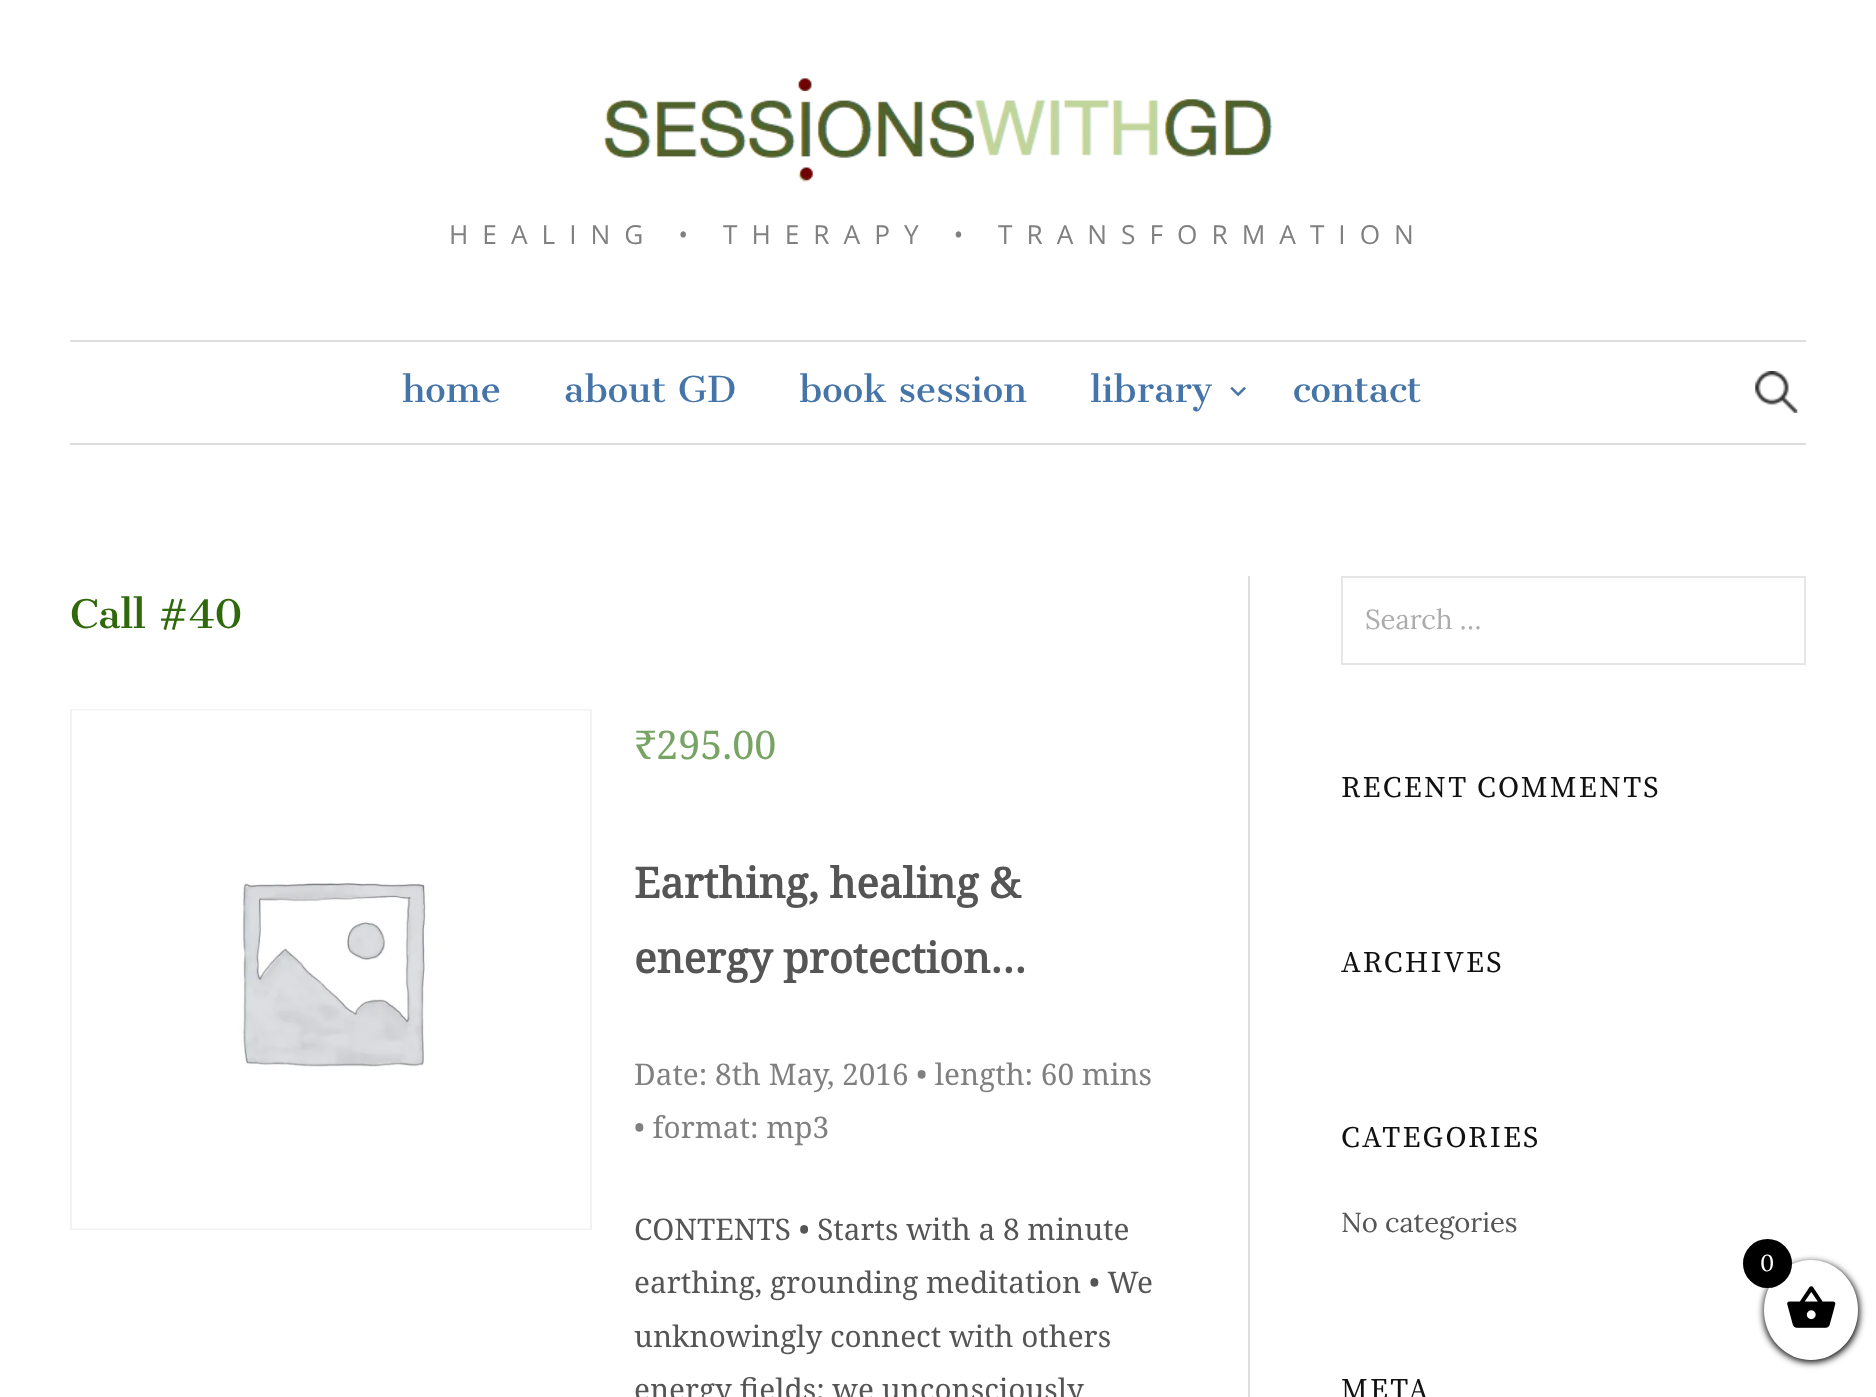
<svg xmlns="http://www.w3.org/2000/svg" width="1876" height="1397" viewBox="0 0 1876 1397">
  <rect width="100%" height="100%" fill="rgb(255,255,255)"/>
  <image x="604" y="78" width="669" height="104" href="pic1.png"/>
  <text x="449" y="244" font-family="Open Sans" font-size="26.25" letter-spacing="14" fill="rgb(128,128,128)">HEALING • THERAPY • TRANSFORMATION</text>
  <rect x="70" y="340" width="1736" height="2" fill="rgb(221,221,221)"/>
  <rect x="70" y="443" width="1736" height="2" fill="rgb(221,221,221)"/>
  <g font-family="Cantata One" font-size="35" fill="rgb(69,116,168)">
    <text x="402" y="402">home</text>
    <text x="564" y="402">about GD</text>
    <text x="799" y="402">book session</text>
    <text x="1090" y="402">library</text>
  </g>
  <image x="1230" y="386" width="16" height="11" href="pic2.png"/>
  <text x="1293" y="402" font-family="Cantata One" font-size="35" fill="rgb(69,116,168)">contact</text>
  <image x="1755" y="371" width="43" height="42" href="pic3.png"/>
  <rect x="1248" y="576" width="2" height="821" fill="rgb(221,221,221)"/>
  <text x="70" y="628" font-family="Cantata One" font-size="38.5" letter-spacing="-0.5" fill="rgb(47,105,12)">Call #40</text>
  <rect x="71" y="710" width="520" height="519" fill="none" stroke="rgb(242,242,242)" stroke-width="2"/>
  <image x="72" y="710" width="518" height="519" href="pic4.png"/>
  <text x="634" y="759" font-family="Noto Serif" font-size="39.5" fill="rgb(119,164,100)">₹295.00</text>
  <g font-family="Noto Serif" font-size="42" font-weight="bold" fill="rgb(85,85,85)">
    <text>
      <tspan x="634" y="898">Earthing, healing &amp;</tspan>
      <tspan x="634" y="973">energy protection…</tspan>
    </text>
  </g>
  <g font-family="Noto Serif" font-size="29.75" fill="rgb(128,128,128)">
    <text>
      <tspan x="634" y="1085">Date: 8th May, 2016 • length: 60 mins</tspan>
      <tspan x="634" y="1138">• format: mp3</tspan>
    </text>
  </g>
  <g font-family="Noto Serif" font-size="29.75" fill="rgb(85,85,85)">
    <text>
      <tspan x="634" y="1240">CONTENTS • Starts with a 8 minute</tspan>
      <tspan x="634" y="1293">earthing, grounding meditation • We</tspan>
      <tspan x="634" y="1347">unknowingly connect with others</tspan>
      <tspan x="634" y="1400">energy fields; we unconsciously</tspan>
    </text>
  </g>
  <rect x="1342" y="577" width="463" height="87" fill="none" stroke="rgb(230,230,230)" stroke-width="2"/>
  <text x="1365" y="629" font-family="Lora" font-size="27.5" fill="rgb(172,172,172)">Search …</text>
  <g font-family="Source Serif Pro" font-size="29.75" letter-spacing="2.25" fill="rgb(17,17,17)">
    <text x="1341" y="797">RECENT COMMENTS</text>
    <text x="1341" y="972">ARCHIVES</text>
    <text x="1341" y="1147">CATEGORIES</text>
  </g>
  <text x="1341" y="1232" font-family="Lora" font-size="27.5" fill="rgb(85,85,85)">No categories</text>
  <text x="1341" y="1399" font-family="Source Serif Pro" font-size="29.75" letter-spacing="2.25" fill="rgb(17,17,17)">META</text>
  <rect x="1764" y="1262" width="95" height="100" rx="47.5" fill="rgb(0,0,0)" filter="blur(3.5px)"/>
  <ellipse cx="1811" cy="1310" rx="47" ry="50" fill="rgb(255,255,255)"/>
  <circle cx="1767.5" cy="1263.5" r="24.5" fill="rgb(0,0,0)"/>
  <text x="1760" y="1271" font-family="Lora" font-size="23" fill="rgb(255,255,255)">0</text>
  <image x="1787" y="1286" width="49" height="42" href="pic5.png"/>
</svg>
